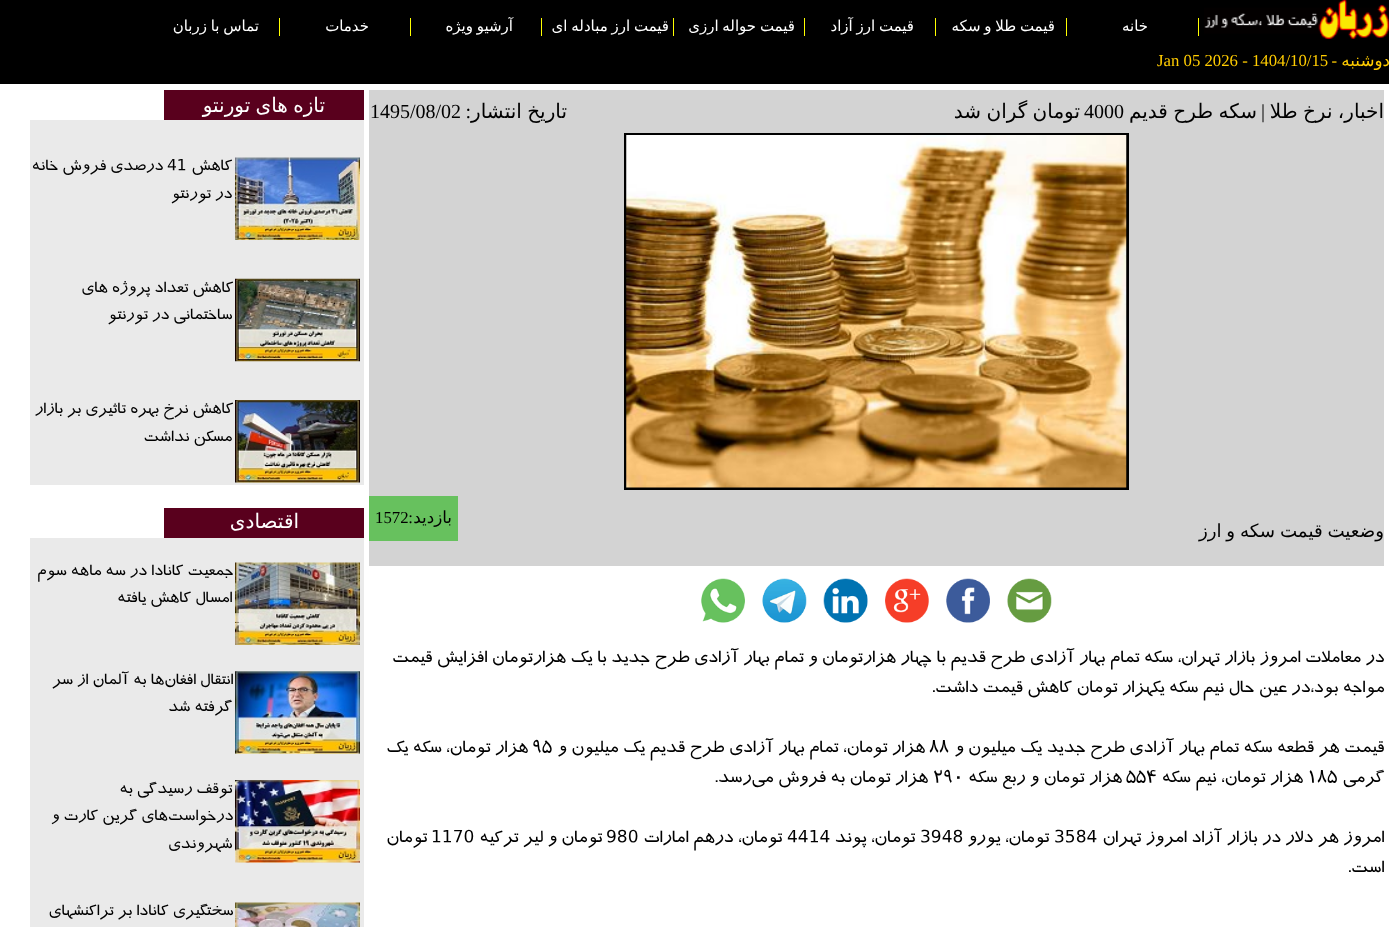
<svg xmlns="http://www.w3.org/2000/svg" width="1389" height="927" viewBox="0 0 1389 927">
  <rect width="100%" height="100%" fill="rgb(255,255,255)"/>
  <rect x="0" y="0" width="1389" height="84" fill="rgb(0,0,0)"/>
  <image x="1204" y="0" width="185" height="39" href="pic1.png"/>
  <rect x="1198" y="18" width="1" height="18" fill="rgb(255,255,0)"/>
  <text x="1148" y="31" font-family="DejaVu Sans" font-size="15" direction="rtl" fill="rgb(255,255,255)">خانه</text>
  <rect x="1066" y="18" width="1" height="18" fill="rgb(255,255,0)"/>
  <text x="1055" y="31" word-spacing="-1" font-family="DejaVu Sans" font-size="15" direction="rtl" fill="rgb(255,255,255)">قیمت طلا و سکه</text>
  <rect x="935" y="18" width="1" height="18" fill="rgb(255,255,0)"/>
  <text x="914" y="31" word-spacing="-1" font-family="DejaVu Sans" font-size="15" direction="rtl" fill="rgb(255,255,255)">قیمت ارز آزاد</text>
  <rect x="804" y="18" width="1" height="18" fill="rgb(255,255,0)"/>
  <text x="795" y="31" word-spacing="-1" font-family="DejaVu Sans" font-size="15" direction="rtl" fill="rgb(255,255,255)">قیمت حواله ارزی</text>
  <rect x="673" y="18" width="1" height="18" fill="rgb(255,255,0)"/>
  <text x="669" y="31" word-spacing="-1" font-family="DejaVu Sans" font-size="15" direction="rtl" fill="rgb(255,255,255)">قیمت ارز مبادله ای</text>
  <rect x="541" y="18" width="1" height="18" fill="rgb(255,255,0)"/>
  <text x="513" y="31" word-spacing="-1" font-family="DejaVu Sans" font-size="15" direction="rtl" fill="rgb(255,255,255)">آرشیو ویژه</text>
  <rect x="410" y="18" width="1" height="18" fill="rgb(255,255,0)"/>
  <text x="369" y="31" font-family="DejaVu Sans" font-size="15" direction="rtl" fill="rgb(255,255,255)">خدمات</text>
  <rect x="279" y="18" width="1" height="18" fill="rgb(255,255,0)"/>
  <text x="259" y="31" word-spacing="-1" font-family="DejaVu Sans" font-size="15" direction="rtl" fill="rgb(255,255,255)">تماس با زربان</text>
  <text x="1390" y="66" font-family="DejaVu Sans" font-size="16.75" direction="rtl" fill="rgb(255,204,0)">دوشنبه</text>
  <text x="1337" y="66" font-family="Liberation Serif" font-size="16.75" direction="rtl" fill="rgb(255,204,0)">-</text>
  <text x="1157" y="66" font-family="Liberation Serif" font-size="16.75" fill="rgb(255,204,0)">Jan 05 2026 - 1404/10/15</text>
  <rect x="369" y="90" width="1015" height="476" fill="rgb(211,211,211)"/>
  <text x="1384" y="118" word-spacing="-1" font-family="DejaVu Sans" font-size="20" direction="rtl" fill="rgb(0,0,0)">اخبار، نرخ طلا</text>
  <text x="1265" y="118" font-family="Liberation Serif" font-size="20" direction="rtl" fill="rgb(0,0,0)">|</text>
  <text x="1257" y="118" word-spacing="-1" font-family="DejaVu Sans" font-size="20" direction="rtl" fill="rgb(0,0,0)">سکه طرح قدیم</text>
  <text x="1084" y="118" font-family="Liberation Serif" font-size="20" fill="rgb(0,0,0)">4000</text>
  <text x="1080" y="118" word-spacing="-1" font-family="DejaVu Sans" font-size="20" direction="rtl" fill="rgb(0,0,0)">تومان گران شد</text>
  <text x="471" y="118" font-family="Liberation Serif" font-size="20" direction="rtl" fill="rgb(0,0,0)">:</text>
  <text x="567" y="118" word-spacing="-1" font-family="DejaVu Sans" font-size="20" direction="rtl" fill="rgb(0,0,0)">تاریخ انتشار</text>
  <text x="370" y="118" font-family="Liberation Serif" font-size="20" fill="rgb(0,0,0)">1495/08/02</text>
  <rect x="625.5" y="134.5" width="502" height="354" fill="none" stroke="rgb(0,0,0)" stroke-width="3"/>
  <image x="626" y="135" width="501" height="353" href="pic2.png"/>
  <rect x="369" y="496" width="89" height="45" fill="rgb(103,193,94)"/>
  <text x="452" y="523" font-family="DejaVu Sans" font-size="16.75" direction="rtl" fill="rgb(0,0,0)">بازدید</text>
  <text x="413" y="523" font-family="Liberation Serif" font-size="16.75" direction="rtl" fill="rgb(0,0,0)">:</text>
  <text x="375" y="523" font-family="Liberation Serif" font-size="16.75" fill="rgb(0,0,0)">1572</text>
  <text x="1384" y="537" word-spacing="-1" font-family="DejaVu Sans" font-size="18.25" direction="rtl" fill="rgb(0,0,0)">وضعیت قیمت سکه و ارز</text>
  <image x="1007" y="578" width="45" height="45" href="pic3.png"/>
  <image x="946" y="578" width="44" height="45" href="pic4.png"/>
  <image x="885" y="578" width="44" height="45" href="pic5.png"/>
  <image x="823" y="578" width="45" height="45" href="pic6.png"/>
  <image x="762" y="578" width="45" height="45" href="pic7.png"/>
  <image x="701" y="578" width="44" height="45" href="pic8.png"/>
  <g font-family="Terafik" font-size="20" direction="rtl" fill="rgb(0,0,0)">
    <text>
      <tspan x="1384" y="662">در معاملات امروز بازار تهران، سکه تمام بهار آزادی طرح قدیم با چهار هزارتومان و تمام بهار آزادی طرح جدید با یک هزارتومان افزایش قیمت</tspan>
      <tspan x="1384" y="692">مواجه بود،در عین حال نیم سکه یکهزار تومان کاهش قیمت داشت.</tspan>
    </text>
    <text x="1384" y="752">قیمت هر قطعه سکه تمام بهار آزادی طرح جدید یک میلیون و</text>
  </g>
  <text x="929" y="752" font-family="Terafik" font-size="20" fill="rgb(0,0,0)">۸۸</text>
  <text x="925" y="752" font-family="Terafik" font-size="20" direction="rtl" fill="rgb(0,0,0)">هزار تومان، تمام بهار آزادی طرح قدیم یک میلیون و</text>
  <text x="532" y="752" font-family="Terafik" font-size="20" fill="rgb(0,0,0)">۹۵</text>
  <g font-family="Terafik" font-size="20" direction="rtl" fill="rgb(0,0,0)">
    <text x="528" y="752">هزار تومان، سکه یک</text>
    <text x="1384" y="782">گرمی</text>
  </g>
  <text x="1307" y="782" font-family="Terafik" font-size="20" fill="rgb(0,0,0)">۱۸۵</text>
  <text x="1303" y="782" font-family="Terafik" font-size="20" direction="rtl" fill="rgb(0,0,0)">هزار تومان، نیم سکه</text>
  <text x="1126" y="782" font-family="Terafik" font-size="20" fill="rgb(0,0,0)">۵۵۴</text>
  <text x="1122" y="782" font-family="Terafik" font-size="20" direction="rtl" fill="rgb(0,0,0)">هزار تومان و ربع سکه</text>
  <text x="933" y="782" font-family="Terafik" font-size="20" fill="rgb(0,0,0)">۲۹۰</text>
  <g font-family="Terafik" font-size="20" direction="rtl" fill="rgb(0,0,0)">
    <text x="928" y="782">هزار تومان به فروش می‌رسد.</text>
    <text x="1384" y="842">امروز هر دلار در بازار آزاد امروز تهران</text>
  </g>
  <text x="1054" y="842" font-family="Terafik" font-size="20" fill="rgb(0,0,0)">3584</text>
  <text x="1049" y="842" font-family="Terafik" font-size="20" direction="rtl" fill="rgb(0,0,0)">تومان، یورو</text>
  <text x="920" y="842" font-family="Terafik" font-size="20" fill="rgb(0,0,0)">3948</text>
  <text x="915" y="842" font-family="Terafik" font-size="20" direction="rtl" fill="rgb(0,0,0)">تومان، پوند</text>
  <text x="787" y="842" font-family="Terafik" font-size="20" fill="rgb(0,0,0)">4414</text>
  <text x="782" y="842" font-family="Terafik" font-size="20" direction="rtl" fill="rgb(0,0,0)">تومان، درهم امارات</text>
  <text x="606" y="842" font-family="Terafik" font-size="20" fill="rgb(0,0,0)">980</text>
  <text x="602" y="842" font-family="Terafik" font-size="20" direction="rtl" fill="rgb(0,0,0)">تومان و لیر ترکیه</text>
  <text x="431" y="842" font-family="Terafik" font-size="20" fill="rgb(0,0,0)">1170</text>
  <g font-family="Terafik" font-size="20" direction="rtl" fill="rgb(0,0,0)">
    <text x="427" y="842">تومان</text>
    <text x="1384" y="872">است.</text>
  </g>
  <rect x="164" y="90" width="200" height="30" fill="rgb(89,0,29)"/>
  <text x="325" y="112" word-spacing="-1" font-family="DejaVu Sans" font-size="20" direction="rtl" fill="rgb(255,255,255)">تازه های تورنتو</text>
  <rect x="30" y="120" width="334" height="365" fill="rgb(234,234,234)"/>
  <image x="235" y="157" width="125" height="83" href="pic9.png"/>
  <text x="232" y="170" font-family="Terafik" font-size="18.25" direction="rtl" fill="rgb(0,0,0)">کاهش</text>
  <text x="167" y="170" font-family="Terafik" font-size="18.25" fill="rgb(0,0,0)">41</text>
  <g font-family="Terafik" font-size="18.25" direction="rtl" fill="rgb(0,0,0)">
    <text x="163" y="170">درصدی فروش خانه</text>
    <text x="232" y="198">در تورنتو</text>
  </g>
  <image x="235" y="278" width="125" height="84" href="pic10.png"/>
  <g font-family="Terafik" font-size="18.25" direction="rtl" fill="rgb(0,0,0)">
    <text x="233" y="292">کاهش تعداد پروژه های</text>
    <text x="232" y="319">ساختمانی در تورنتو</text>
  </g>
  <image x="235" y="400" width="125" height="83" href="pic11.png"/>
  <g font-family="Terafik" font-size="18.25" direction="rtl" fill="rgb(0,0,0)">
    <text x="233" y="413">کاهش نرخ بهره تاثیری بر بازار</text>
    <text x="232" y="441">مسکن نداشت</text>
  </g>
  <rect x="164" y="508" width="200" height="30" fill="rgb(89,0,29)"/>
  <text x="299" y="528" font-family="DejaVu Sans" font-size="20" direction="rtl" fill="rgb(255,255,255)">اقتصادی</text>
  <rect x="30" y="538" width="334" height="389" fill="rgb(234,234,234)"/>
  <image x="235" y="562" width="125" height="83" href="pic12.png"/>
  <g font-family="Terafik" font-size="18.25" direction="rtl" fill="rgb(0,0,0)">
    <text x="233" y="575">جمعیت کانادا در سه ماهه سوم</text>
    <text x="232" y="602">امسال کاهش یافته</text>
  </g>
  <image x="235" y="671" width="125" height="83" href="pic13.png"/>
  <g font-family="Terafik" font-size="18.25" direction="rtl" fill="rgb(0,0,0)">
    <text x="233" y="684">انتقال افغان‌ها به آلمان از سر</text>
    <text x="232" y="711">گرفته شد</text>
  </g>
  <image x="235" y="780" width="125" height="83" href="pic14.png"/>
  <g font-family="Terafik" font-size="18.25" direction="rtl" fill="rgb(0,0,0)">
    <text x="232" y="793">توقف رسیدگی به</text>
    <text x="233" y="820">درخواست‌های گرین کارت و</text>
    <text x="232" y="848">شهروندی</text>
  </g>
  <image x="235" y="902" width="125" height="25" href="pic15.png"/>
  <text x="233" y="915" font-family="Terafik" font-size="18.25" direction="rtl" fill="rgb(0,0,0)">سختگیری کانادا بر تراکنشهای</text>
</svg>
